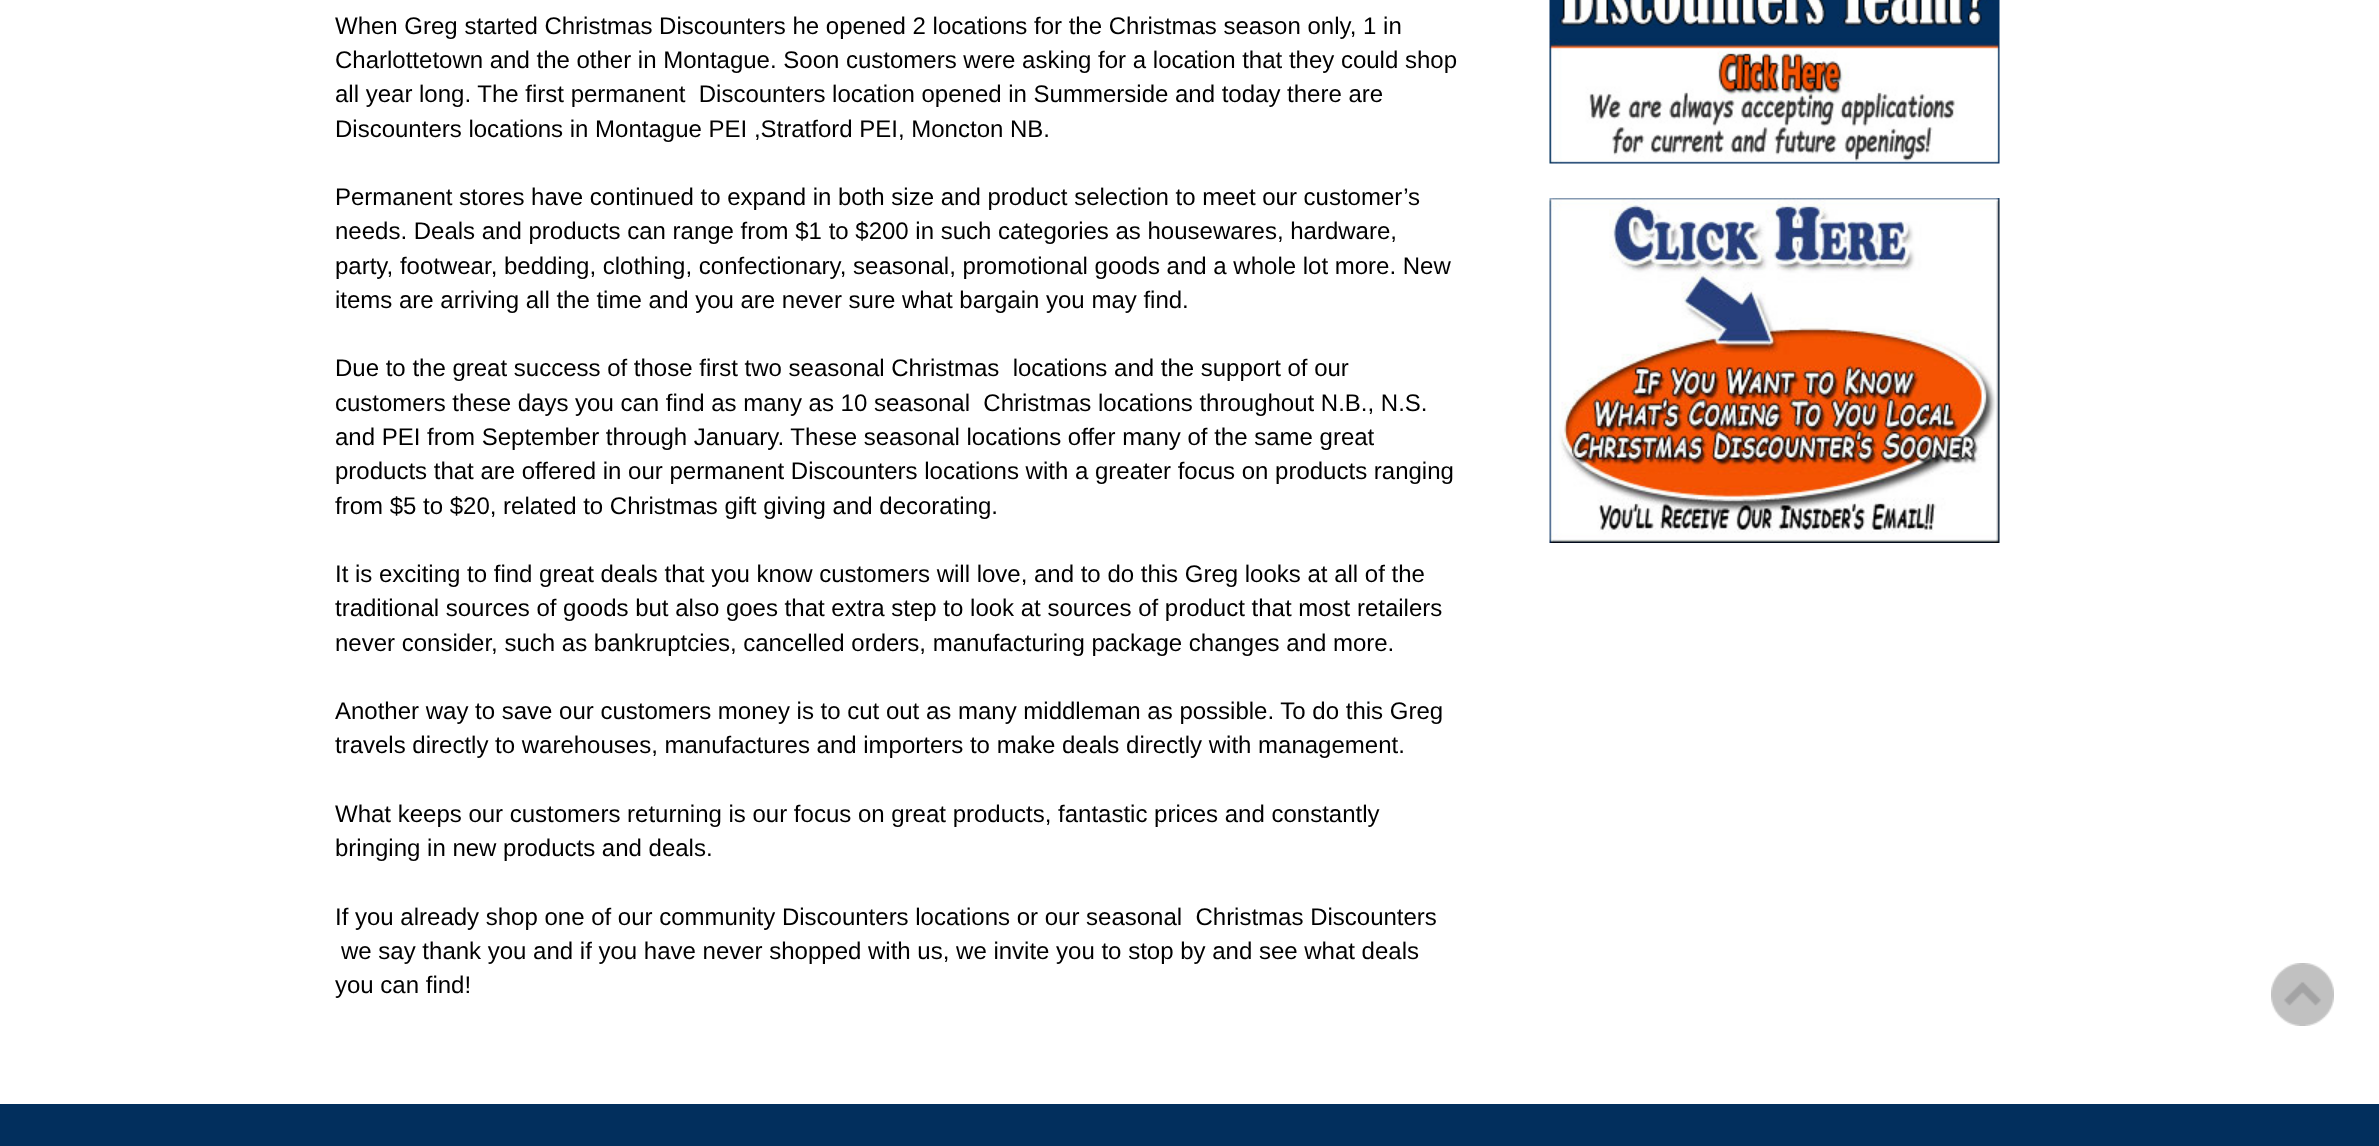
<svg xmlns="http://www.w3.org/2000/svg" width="2379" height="1146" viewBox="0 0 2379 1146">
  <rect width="100%" height="100%" fill="rgb(2,47,93)"/>
  <rect x="0" y="0" width="2379" height="1104" fill="rgb(255,255,255)"/>
  <g font-family="Liberation Sans" font-size="24" fill="rgb(0,0,0)">
    <text xml:space="preserve"><tspan x="335" y="34">When Greg started Christmas Discounters he opened 2 locations for the Christmas season only, 1 in</tspan><tspan x="335" y="68">Charlottetown and the other in Montague. Soon customers were asking for a location that they could shop</tspan><tspan x="335" y="102">all year long. The first permanent  Discounters location opened in Summerside and today there are</tspan><tspan x="335" y="137">Discounters locations in Montague PEI ,Stratford PEI, Moncton NB.</tspan></text>
    <text>
      <tspan x="335" y="205">Permanent stores have continued to expand in both size and product selection to meet our customer’s</tspan>
      <tspan x="335" y="239">needs. Deals and products can range from $1 to $200 in such categories as housewares, hardware,</tspan>
      <tspan x="335" y="274">party, footwear, bedding, clothing, confectionary, seasonal, promotional goods and a whole lot more. New</tspan>
      <tspan x="335" y="308">items are arriving all the time and you are never sure what bargain you may find.</tspan>
    </text>
    <text xml:space="preserve"><tspan x="335" y="376">Due to the great success of those first two seasonal Christmas  locations and the support of our</tspan><tspan x="335" y="411">customers these days you can find as many as 10 seasonal  Christmas locations throughout N.B., N.S.</tspan><tspan x="335" y="445">and PEI from September through January. These seasonal locations offer many of the same great</tspan><tspan x="335" y="479">products that are offered in our permanent Discounters locations with a greater focus on products ranging</tspan><tspan x="335" y="514">from $5 to $20, related to Christmas gift giving and decorating.</tspan></text>
    <text>
      <tspan x="335" y="582">It is exciting to find great deals that you know customers will love, and to do this Greg looks at all of the</tspan>
      <tspan x="335" y="616">traditional sources of goods but also goes that extra step to look at sources of product that most retailers</tspan>
      <tspan x="335" y="651">never consider, such as bankruptcies, cancelled orders, manufacturing package changes and more.</tspan>
    </text>
    <text>
      <tspan x="335" y="719">Another way to save our customers money is to cut out as many middleman as possible. To do this Greg</tspan>
      <tspan x="335" y="753">travels directly to warehouses, manufactures and importers to make deals directly with management.</tspan>
    </text>
    <text>
      <tspan x="335" y="822">What keeps our customers returning is our focus on great products, fantastic prices and constantly</tspan>
      <tspan x="335" y="856">bringing in new products and deals.</tspan>
    </text>
    <text x="335" y="925" xml:space="preserve">If you already shop one of our community Discounters locations or our seasonal  Christmas Discounters</text>
    <text x="341" y="959">we say thank you and if you have never shopped with us, we invite you to stop by and see what deals</text>
    <text x="335" y="993">you can find!</text>
  </g>
  <image x="1549" y="0" width="451" height="164" href="pic1.png"/>
  <image x="1549" y="198" width="451" height="345" href="pic2.png"/>
  <image x="2271" y="963" width="63" height="63" href="pic3.png"/>
</svg>
